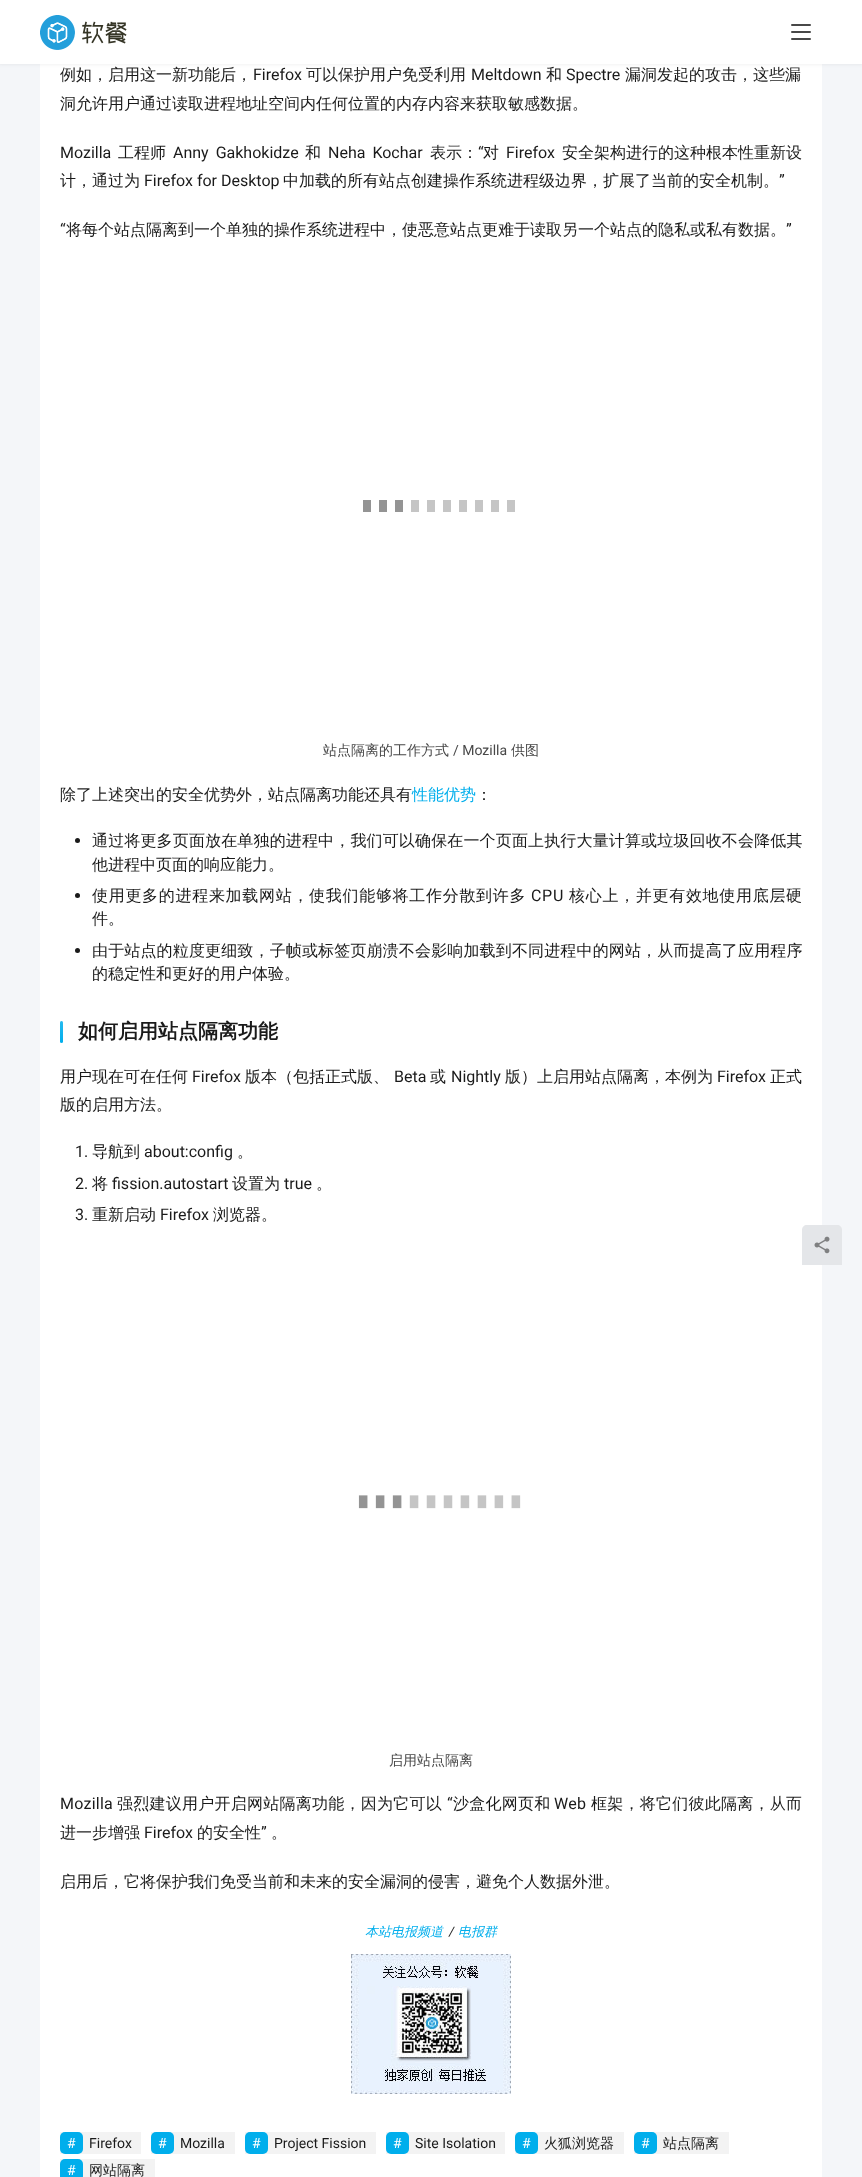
<svg xmlns="http://www.w3.org/2000/svg" width="862" height="2177" viewBox="0 0 862 2177">
  <defs>
    <linearGradient id="g1" gradientUnits="userSpaceOnUse" x1="62" y1="1021" x2="62" y2="1043"><stop offset="0" stop-color="rgb(255,255,255)" stop-opacity="0.15"/><stop offset="1" stop-color="rgb(255,255,255)" stop-opacity="0"/></linearGradient>
  </defs>
  <rect width="100%" height="100%" fill="rgb(244,246,249)"/>
  <rect x="40" y="64" width="782" height="2113" fill="rgb(255,255,255)"/>
  <rect x="-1" y="-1" width="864" height="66" fill="rgba(26,26,26,0.06)" filter="blur(1.5px)"/>
  <rect x="0" y="0" width="862" height="64" fill="rgb(255,255,255)"/>
  <image x="40" y="15" width="87" height="35" href="pic1.png"/>
  <rect x="791" y="24" width="20" height="2" rx="1" fill="rgb(72,72,72)"/>
  <rect x="791" y="31" width="20" height="2" rx="1" fill="rgb(72,72,72)"/>
  <rect x="791" y="38" width="20" height="2" rx="1" fill="rgb(72,72,72)"/>
  <text x="60" y="80" font-family="WenQuanYi Zen Hei" font-size="16" font-weight="500" fill="rgb(26,26,26)">例如，启用这一新功能后，</text>
  <text x="253" y="80" font-family="Roboto" font-size="16" fill="rgb(26,26,26)">Firefox</text>
  <text x="306" y="80" font-family="WenQuanYi Zen Hei" font-size="16" font-weight="500" fill="rgb(26,26,26)">可以保护用户免受利用</text>
  <text x="471" y="80" font-family="Roboto" font-size="16" fill="rgb(26,26,26)">Meltdown</text>
  <text x="546" y="80" font-family="WenQuanYi Zen Hei" font-size="16" font-weight="500" fill="rgb(26,26,26)">和</text>
  <text x="566" y="80" font-family="Roboto" font-size="16" fill="rgb(26,26,26)">Spectre</text>
  <g font-family="WenQuanYi Zen Hei" font-size="16" font-weight="500" fill="rgb(26,26,26)">
    <text x="625" y="80">漏洞发起的攻击，这些漏</text>
    <text x="60" y="109">洞允许用户通过读取进程地址空间内任何位置的内存内容来获取敏感数据。</text>
  </g>
  <text x="60" y="158" font-family="Roboto" font-size="16" fill="rgb(26,26,26)">Mozilla</text>
  <text x="118" y="158" font-family="WenQuanYi Zen Hei" font-size="16" font-weight="500" fill="rgb(26,26,26)">工程师</text>
  <text x="173" y="158" word-spacing="3" font-family="Roboto" font-size="16" fill="rgb(26,26,26)">Anny Gakhokidze</text>
  <text x="305" y="158" font-family="WenQuanYi Zen Hei" font-size="16" font-weight="500" fill="rgb(26,26,26)">和</text>
  <text x="328" y="158" word-spacing="3" font-family="Roboto" font-size="16" fill="rgb(26,26,26)">Neha Kochar</text>
  <text x="430" y="158" font-family="WenQuanYi Zen Hei" font-size="16" font-weight="500" fill="rgb(26,26,26)">表示：</text>
  <text x="478" y="158" font-family="Roboto" font-size="16" fill="rgb(26,26,26)">“</text>
  <text x="483" y="158" font-family="WenQuanYi Zen Hei" font-size="16" font-weight="500" fill="rgb(26,26,26)">对</text>
  <text x="506" y="158" font-family="Roboto" font-size="16" fill="rgb(26,26,26)">Firefox</text>
  <g font-family="WenQuanYi Zen Hei" font-size="16" font-weight="500" fill="rgb(26,26,26)">
    <text x="562" y="158">安全架构进行的这种根本性重新设</text>
    <text x="60" y="186">计，通过为</text>
  </g>
  <text x="144" y="186" font-family="Roboto" font-size="16" fill="rgb(26,26,26)">Firefox for Desktop</text>
  <text x="283" y="186" font-family="WenQuanYi Zen Hei" font-size="16" font-weight="500" fill="rgb(26,26,26)">中加载的所有站点创建操作系统进程级边界，扩展了当前的安全机制。</text>
  <g font-family="Roboto" font-size="16" fill="rgb(26,26,26)">
    <text x="779" y="186">”</text>
    <text x="60" y="235">“</text>
  </g>
  <text x="66" y="235" font-family="WenQuanYi Zen Hei" font-size="16" font-weight="500" fill="rgb(26,26,26)">将每个站点隔离到一个单独的操作系统进程中，使恶意站点更难于读取另一个站点的隐私或私有数据。</text>
  <text x="786" y="235" font-family="Roboto" font-size="16" fill="rgb(26,26,26)">”</text>
  <image x="363" y="500" width="152" height="12" href="pic2.png"/>
  <text x="323" y="755" font-family="WenQuanYi Zen Hei" font-size="14" font-weight="500" fill="rgb(72,72,72)">站点隔离的工作方式</text>
  <text x="453" y="755" font-family="Roboto" font-size="14" fill="rgb(72,72,72)">/ Mozilla</text>
  <text x="511" y="755" font-family="WenQuanYi Zen Hei" font-size="14" font-weight="500" fill="rgb(72,72,72)">供图</text>
  <text x="60" y="800" font-family="WenQuanYi Zen Hei" font-size="16" font-weight="500" fill="rgb(26,26,26)">除了上述突出的安全优势外，站点隔离功能还具有</text>
  <text x="412" y="800" font-family="WenQuanYi Zen Hei" font-size="16" font-weight="500" fill="rgb(0,174,236)">性能优势</text>
  <text x="476" y="800" font-family="WenQuanYi Zen Hei" font-size="16" font-weight="500" fill="rgb(26,26,26)">：</text>
  <circle cx="77.5" cy="840.5" r="2.5" fill="rgb(26,26,26)"/>
  <text x="92" y="846" font-family="WenQuanYi Zen Hei" font-size="16" font-weight="500" letter-spacing="0.15" fill="rgb(26,26,26)">通过将更多页面放在单独的进程中，我们可以确保在一个页面上执行大量计算或垃圾回收不会降低其</text>
  <text x="92" y="870" font-family="WenQuanYi Zen Hei" font-size="16" font-weight="500" fill="rgb(26,26,26)">他进程中页面的响应能力。</text>
  <circle cx="77.5" cy="895.5" r="2.5" fill="rgb(26,26,26)"/>
  <text x="92" y="901" font-family="WenQuanYi Zen Hei" font-size="16" font-weight="500" letter-spacing="0.7" fill="rgb(26,26,26)">使用更多的进程来加载网站，使我们能够将工作分散到许多</text>
  <text x="531" y="901" font-family="Roboto" font-size="16" letter-spacing="0.7" fill="rgb(26,26,26)">CPU</text>
  <text x="569" y="901" font-family="WenQuanYi Zen Hei" font-size="16" font-weight="500" letter-spacing="0.7" fill="rgb(26,26,26)">核心上，并更有效地使用底层硬</text>
  <text x="92" y="924" font-family="WenQuanYi Zen Hei" font-size="16" font-weight="500" fill="rgb(26,26,26)">件。</text>
  <circle cx="77.5" cy="950.5" r="2.5" fill="rgb(26,26,26)"/>
  <text x="92" y="956" font-family="WenQuanYi Zen Hei" font-size="16" font-weight="500" letter-spacing="0.15" fill="rgb(26,26,26)">由于站点的粒度更细致，子帧或标签页崩溃不会影响加载到不同进程中的网站，从而提高了应用程序</text>
  <text x="92" y="979" font-family="WenQuanYi Zen Hei" font-size="16" font-weight="500" fill="rgb(26,26,26)">的稳定性和更好的用户体验。</text>
  <rect x="60" y="1021" width="3" height="22" rx="1.5" fill="rgb(0,174,236)"/>
  <rect x="60" y="1021" width="3" height="22" rx="1.5" fill="url(#g1)"/>
  <text x="78" y="1038" font-family="WenQuanYi Zen Hei" font-size="20" font-weight="bold" fill="rgb(26,26,26)">如何启用站点隔离功能</text>
  <text x="60" y="1082" font-family="WenQuanYi Zen Hei" font-size="16" font-weight="500" fill="rgb(26,26,26)">用户现在可在任何</text>
  <text x="192" y="1082" font-family="Roboto" font-size="16" fill="rgb(26,26,26)">Firefox</text>
  <text x="245" y="1082" font-family="WenQuanYi Zen Hei" font-size="16" font-weight="500" fill="rgb(26,26,26)">版本（包括正式版、</text>
  <text x="394" y="1082" font-family="Roboto" font-size="16" fill="rgb(26,26,26)">Beta</text>
  <text x="430" y="1082" font-family="WenQuanYi Zen Hei" font-size="16" font-weight="500" fill="rgb(26,26,26)">或</text>
  <text x="451" y="1082" font-family="Roboto" font-size="16" fill="rgb(26,26,26)">Nightly</text>
  <text x="505" y="1082" font-family="WenQuanYi Zen Hei" font-size="16" font-weight="500" fill="rgb(26,26,26)">版）上启用站点隔离，本例为</text>
  <text x="717" y="1082" font-family="Roboto" font-size="16" fill="rgb(26,26,26)">Firefox</text>
  <g font-family="WenQuanYi Zen Hei" font-size="16" font-weight="500" fill="rgb(26,26,26)">
    <text x="770" y="1082">正式</text>
    <text x="60" y="1110">版的启用方法。</text>
  </g>
  <text x="75" y="1157" font-family="Roboto" font-size="16" fill="rgb(26,26,26)">1.</text>
  <text x="92" y="1157" font-family="WenQuanYi Zen Hei" font-size="16" font-weight="500" fill="rgb(26,26,26)">导航到</text>
  <text x="144" y="1157" font-family="Roboto" font-size="16" fill="rgb(26,26,26)">about:config</text>
  <text x="237" y="1157" font-family="WenQuanYi Zen Hei" font-size="16" font-weight="500" fill="rgb(26,26,26)">。</text>
  <text x="75" y="1189" font-family="Roboto" font-size="16" fill="rgb(26,26,26)">2.</text>
  <text x="92" y="1189" font-family="WenQuanYi Zen Hei" font-size="16" font-weight="500" fill="rgb(26,26,26)">将</text>
  <text x="112" y="1189" font-family="Roboto" font-size="16" fill="rgb(26,26,26)">fission.autostart</text>
  <text x="232" y="1189" font-family="WenQuanYi Zen Hei" font-size="16" font-weight="500" fill="rgb(26,26,26)">设置为</text>
  <text x="284" y="1189" font-family="Roboto" font-size="16" fill="rgb(26,26,26)">true</text>
  <text x="316" y="1189" font-family="WenQuanYi Zen Hei" font-size="16" font-weight="500" fill="rgb(26,26,26)">。</text>
  <text x="75" y="1220" font-family="Roboto" font-size="16" fill="rgb(26,26,26)">3.</text>
  <text x="92" y="1220" font-family="WenQuanYi Zen Hei" font-size="16" font-weight="500" fill="rgb(26,26,26)">重新启动</text>
  <text x="160" y="1220" font-family="Roboto" font-size="16" fill="rgb(26,26,26)">Firefox</text>
  <text x="213" y="1220" font-family="WenQuanYi Zen Hei" font-size="16" font-weight="500" fill="rgb(26,26,26)">浏览器。</text>
  <image x="358" y="1495" width="163" height="14" href="pic3.png"/>
  <text x="389" y="1765" font-family="WenQuanYi Zen Hei" font-size="14" font-weight="500" fill="rgb(72,72,72)">启用站点隔离</text>
  <text x="60" y="1809" font-family="Roboto" font-size="16" letter-spacing="0.25" fill="rgb(26,26,26)">Mozilla</text>
  <text x="117" y="1809" font-family="WenQuanYi Zen Hei" font-size="16" font-weight="500" letter-spacing="0.25" fill="rgb(26,26,26)">强烈建议用户开启网站隔离功能，因为它可以</text>
  <text x="447" y="1809" font-family="Roboto" font-size="16" letter-spacing="0.25" fill="rgb(26,26,26)">“</text>
  <text x="453" y="1809" font-family="WenQuanYi Zen Hei" font-size="16" font-weight="500" letter-spacing="0.25" fill="rgb(26,26,26)">沙盒化网页和</text>
  <text x="554" y="1809" font-family="Roboto" font-size="16" letter-spacing="0.25" fill="rgb(26,26,26)">Web</text>
  <text x="591" y="1809" font-family="WenQuanYi Zen Hei" font-size="16" font-weight="500" letter-spacing="0.25" fill="rgb(26,26,26)">框架，将它们彼此隔离，从而</text>
  <text x="60" y="1838" font-family="WenQuanYi Zen Hei" font-size="16" font-weight="500" fill="rgb(26,26,26)">进一步增强</text>
  <text x="144" y="1838" font-family="Roboto" font-size="16" fill="rgb(26,26,26)">Firefox</text>
  <text x="197" y="1838" font-family="WenQuanYi Zen Hei" font-size="16" font-weight="500" fill="rgb(26,26,26)">的安全性</text>
  <text x="261" y="1838" font-family="Roboto" font-size="16" fill="rgb(26,26,26)">”</text>
  <g font-family="WenQuanYi Zen Hei" font-size="16" font-weight="500" fill="rgb(26,26,26)">
    <text x="271" y="1838">。</text>
    <text x="60" y="1887">启用后，它将保护我们免受当前和未来的安全漏洞的侵害，避免个人数据外泄。</text>
  </g>
  <text x="365" y="1936" font-family="WenQuanYi Zen Hei" font-size="13" font-weight="500" font-style="italic" fill="rgb(0,174,236)">本站电报频道</text>
  <text x="449" y="1936" font-family="Roboto" font-size="13" font-style="italic" fill="rgb(26,26,26)">/</text>
  <text x="458" y="1936" font-family="WenQuanYi Zen Hei" font-size="13" font-weight="500" font-style="italic" fill="rgb(0,174,236)">电报群</text>
  <image x="351" y="1954" width="160" height="140" href="pic4.png"/>
  <rect x="60" y="2132" width="81" height="22" fill="rgba(26,26,26,0.05)"/>
  <rect x="60" y="2132" width="23" height="22" rx="5" fill="rgb(0,174,236)"/>
  <text x="67" y="2148" font-family="Roboto" font-size="14" fill="rgb(255,255,255)">#</text>
  <text x="89" y="2148" font-family="Roboto" font-size="14" fill="rgb(26,26,26)">Firefox</text>
  <rect x="151" y="2132" width="84" height="22" fill="rgba(26,26,26,0.05)"/>
  <rect x="151" y="2132" width="23" height="22" rx="5" fill="rgb(0,174,236)"/>
  <text x="158" y="2148" font-family="Roboto" font-size="14" fill="rgb(255,255,255)">#</text>
  <text x="180" y="2148" font-family="Roboto" font-size="14" fill="rgb(26,26,26)">Mozilla</text>
  <rect x="245" y="2132" width="131" height="22" fill="rgba(26,26,26,0.05)"/>
  <rect x="245" y="2132" width="23" height="22" rx="5" fill="rgb(0,174,236)"/>
  <text x="252" y="2148" font-family="Roboto" font-size="14" fill="rgb(255,255,255)">#</text>
  <text x="274" y="2148" font-family="Roboto" font-size="14" fill="rgb(26,26,26)">Project Fission</text>
  <rect x="386" y="2132" width="119" height="22" fill="rgba(26,26,26,0.05)"/>
  <rect x="386" y="2132" width="23" height="22" rx="5" fill="rgb(0,174,236)"/>
  <text x="393" y="2148" font-family="Roboto" font-size="14" fill="rgb(255,255,255)">#</text>
  <text x="415" y="2148" font-family="Roboto" font-size="14" fill="rgb(26,26,26)">Site Isolation</text>
  <rect x="515" y="2132" width="109" height="22" fill="rgba(26,26,26,0.05)"/>
  <rect x="515" y="2132" width="23" height="22" rx="5" fill="rgb(0,174,236)"/>
  <text x="522" y="2148" font-family="Roboto" font-size="14" fill="rgb(255,255,255)">#</text>
  <text x="544" y="2148" font-family="WenQuanYi Zen Hei" font-size="14" font-weight="500" fill="rgb(26,26,26)">火狐浏览器</text>
  <rect x="634" y="2132" width="95" height="22" fill="rgba(26,26,26,0.05)"/>
  <rect x="634" y="2132" width="23" height="22" rx="5" fill="rgb(0,174,236)"/>
  <text x="641" y="2148" font-family="Roboto" font-size="14" fill="rgb(255,255,255)">#</text>
  <text x="663" y="2148" font-family="WenQuanYi Zen Hei" font-size="14" font-weight="500" fill="rgb(26,26,26)">站点隔离</text>
  <rect x="60" y="2159" width="95" height="18" fill="rgba(26,26,26,0.05)"/>
  <rect x="60" y="2159" width="23" height="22" rx="5" fill="rgb(0,174,236)"/>
  <text x="67" y="2175" font-family="Roboto" font-size="14" fill="rgb(255,255,255)">#</text>
  <text x="89" y="2175" font-family="WenQuanYi Zen Hei" font-size="14" font-weight="500" fill="rgb(26,26,26)">网站隔离</text>
  <path d="M807 1225H837C840 1225 842 1227 842 1230V1265H802V1230C802 1227 804 1225 807 1225Z" fill="rgb(244,246,249)"/>
  <path d="M807 1225H837C840 1225 842 1227 842 1230V1265H802V1230C802 1227 804 1225 807 1225Z" fill="rgba(26,26,26,0.07)"/>
  <image x="814" y="1236" width="16" height="18" href="pic5.png"/>
</svg>
